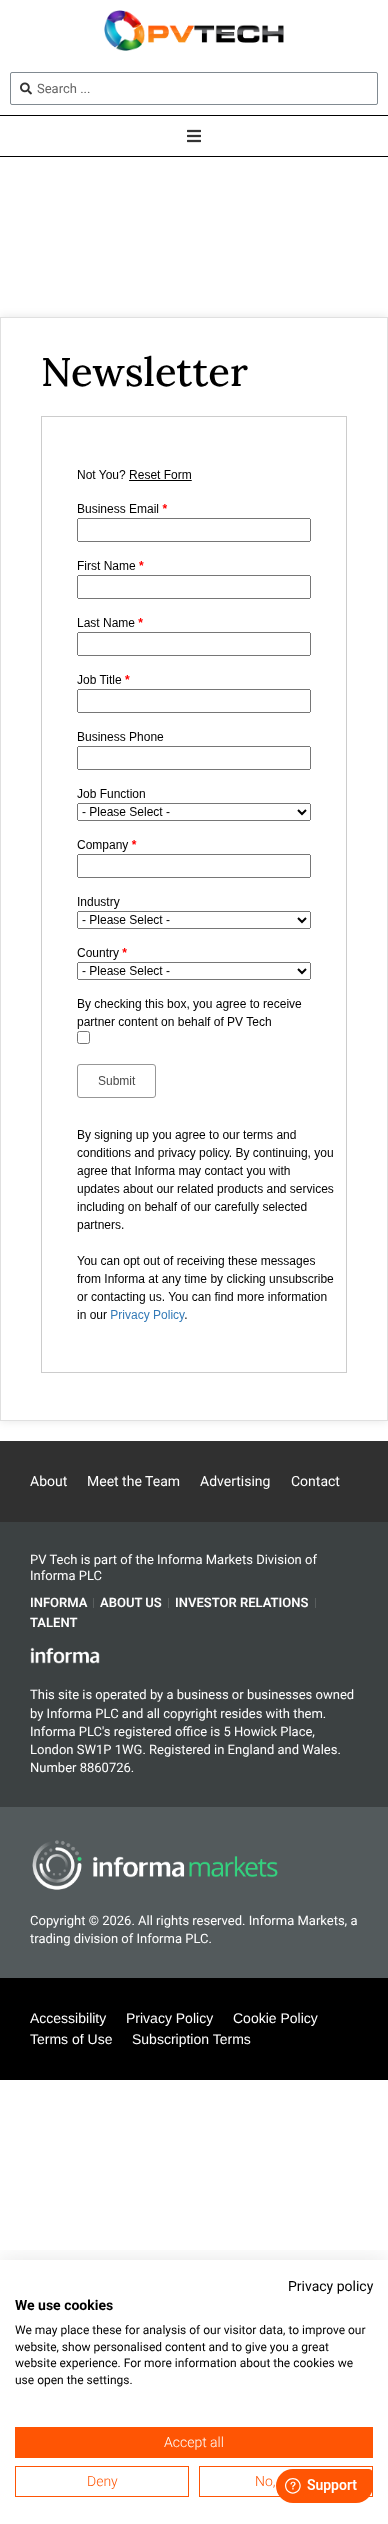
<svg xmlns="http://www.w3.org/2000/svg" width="388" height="2524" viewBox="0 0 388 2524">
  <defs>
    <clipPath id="clip1"><path d="M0 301H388V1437H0ZM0 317H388V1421H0Z" clip-rule="evenodd"/></clipPath>
    <clipPath id="clip2"><rect x="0" y="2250" width="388" height="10"/></clipPath>
  </defs>
  <rect width="100%" height="100%" fill="rgb(255,255,255)"/>
  <image x="104" y="10" width="180" height="41" href="pic1.png"/>
  <rect x="10.5" y="72.5" width="367" height="32" rx="1.5" fill="none" stroke="rgb(129,138,145)"/>
  <image x="20" y="82" width="12" height="13" href="pic2.png"/>
  <text x="37" y="93" font-family="Roboto" font-size="13" fill="rgb(102,102,102)">Search ...</text>
  <rect x="0" y="115" width="388" height="1" fill="rgb(0,0,0)"/>
  <rect x="0" y="156" width="388" height="1" fill="rgb(0,0,0)"/>
  <image x="187" y="129" width="14" height="14" href="pic3.png"/>
  <g clip-path="url(#clip1)">
    <rect x="0" y="317" width="388" height="1104" fill="rgba(0,0,0,0.1)" filter="blur(5px)"/>
  </g>
  <rect x="0.5" y="317.5" width="387" height="1103" fill="none" stroke="rgb(224,224,224)"/>
  <text x="41" y="386" font-family="Lora" font-size="40" font-weight="500" fill="rgb(0,0,0)">Newsletter</text>
  <rect x="41.5" y="416.5" width="305" height="956" fill="none" stroke="rgb(204,204,204)"/>
  <image x="77" y="470" width="257" height="852" href="pic4.png"/>
  <rect x="0" y="1441" width="388" height="81" fill="rgb(48,48,48)"/>
  <g font-family="Roboto" font-size="14" fill="rgb(255,255,255)">
    <text x="30" y="1486">About</text>
    <text x="87" y="1486">Meet the Team</text>
    <text x="200" y="1486">Advertising</text>
    <text x="291" y="1486">Contact</text>
  </g>
  <rect x="0" y="1522" width="388" height="285" fill="rgb(60,65,66)"/>
  <g font-family="Roboto" font-size="13" fill="rgb(255,255,255)">
    <text>
      <tspan x="30" y="1564">PV Tech is part of the Informa Markets Division of</tspan>
      <tspan x="30" y="1580">Informa PLC</tspan>
    </text>
  </g>
  <text x="30" y="1607" font-family="Roboto" font-size="13" font-weight="600" fill="rgb(255,255,255)">INFORMA</text>
  <rect x="93" y="1598" width="1" height="10" fill="rgb(89,94,94)"/>
  <text x="100" y="1607" font-family="Roboto" font-size="13" font-weight="600" fill="rgb(255,255,255)">ABOUT US</text>
  <rect x="168" y="1598" width="1" height="10" fill="rgb(89,94,94)"/>
  <text x="175" y="1607" font-family="Roboto" font-size="13" font-weight="600" fill="rgb(255,255,255)">INVESTOR RELATIONS</text>
  <rect x="315" y="1598" width="1" height="10" fill="rgb(89,94,94)"/>
  <text x="30" y="1627" font-family="Roboto" font-size="13" font-weight="600" fill="rgb(255,255,255)">TALENT</text>
  <image x="30" y="1647" width="70" height="17" href="pic5.png"/>
  <g font-family="Roboto" font-size="13" fill="rgb(255,255,255)">
    <text>
      <tspan x="30" y="1699">This site is operated by a business or businesses owned</tspan>
      <tspan x="30" y="1718">by Informa PLC and all copyright resides with them.</tspan>
      <tspan x="30" y="1736">Informa PLC's registered office is 5 Howick Place,</tspan>
      <tspan x="30" y="1754">London SW1P 1WG. Registered in England and Wales.</tspan>
      <tspan x="30" y="1772">Number 8860726.</tspan>
    </text>
  </g>
  <rect x="0" y="1807" width="388" height="171" fill="rgb(83,90,92)"/>
  <image x="32" y="1840" width="246" height="50" href="pic6.png"/>
  <g font-family="Roboto" font-size="13" fill="rgb(255,255,255)">
    <text>
      <tspan x="30" y="1925">Copyright © 2026. All rights reserved. Informa Markets, a</tspan>
      <tspan x="30" y="1943">trading division of Informa PLC.</tspan>
    </text>
  </g>
  <rect x="0" y="1978" width="388" height="102" fill="rgb(0,0,0)"/>
  <g font-family="Liberation Sans" font-size="14" fill="rgb(255,255,255)">
    <text x="30" y="2023">Accessibility</text>
    <text x="126" y="2023">Privacy Policy</text>
    <text x="233" y="2023">Cookie Policy</text>
    <text x="30" y="2044">Terms of Use</text>
    <text x="132" y="2044">Subscription Terms</text>
  </g>
  <g clip-path="url(#clip2)">
    <rect x="0" y="2260" width="388" height="264" fill="rgba(0,0,0,0.1)" filter="blur(12px)"/>
  </g>
  <text x="288" y="2291" font-family="Roboto" font-size="14" fill="rgb(0,0,0)">Privacy policy</text>
  <text x="15" y="2310" font-family="Roboto" font-size="14" font-weight="bold" fill="rgb(0,0,0)">We use cookies</text>
  <g font-family="Roboto" font-size="12" fill="rgb(0,0,0)">
    <text>
      <tspan x="15" y="2334">We may place these for analysis of our visitor data, to improve our</tspan>
      <tspan x="15" y="2351">website, show personalised content and to give you a great</tspan>
      <tspan x="15" y="2367">website experience. For more information about the cookies we</tspan>
      <tspan x="15" y="2384">use open the settings.</tspan>
    </text>
  </g>
  <rect x="15" y="2427" width="358" height="31" fill="rgb(255,85,4)"/>
  <text x="164" y="2447" font-family="Roboto" font-size="14" font-weight="300" fill="rgb(255,255,255)">Accept all</text>
  <rect x="15.5" y="2466.5" width="173" height="30" fill="none" stroke="rgb(255,85,4)"/>
  <text x="87" y="2486" font-family="Roboto" font-size="14" font-weight="300" fill="rgb(255,85,4)">Deny</text>
  <rect x="199.5" y="2466.5" width="173" height="30" fill="none" stroke="rgb(255,85,4)"/>
  <text x="255" y="2486" font-family="Roboto" font-size="14" font-weight="300" fill="rgb(255,85,4)">No,</text>
  <image x="276" y="2469" width="96" height="34" href="pic7.png"/>
</svg>
